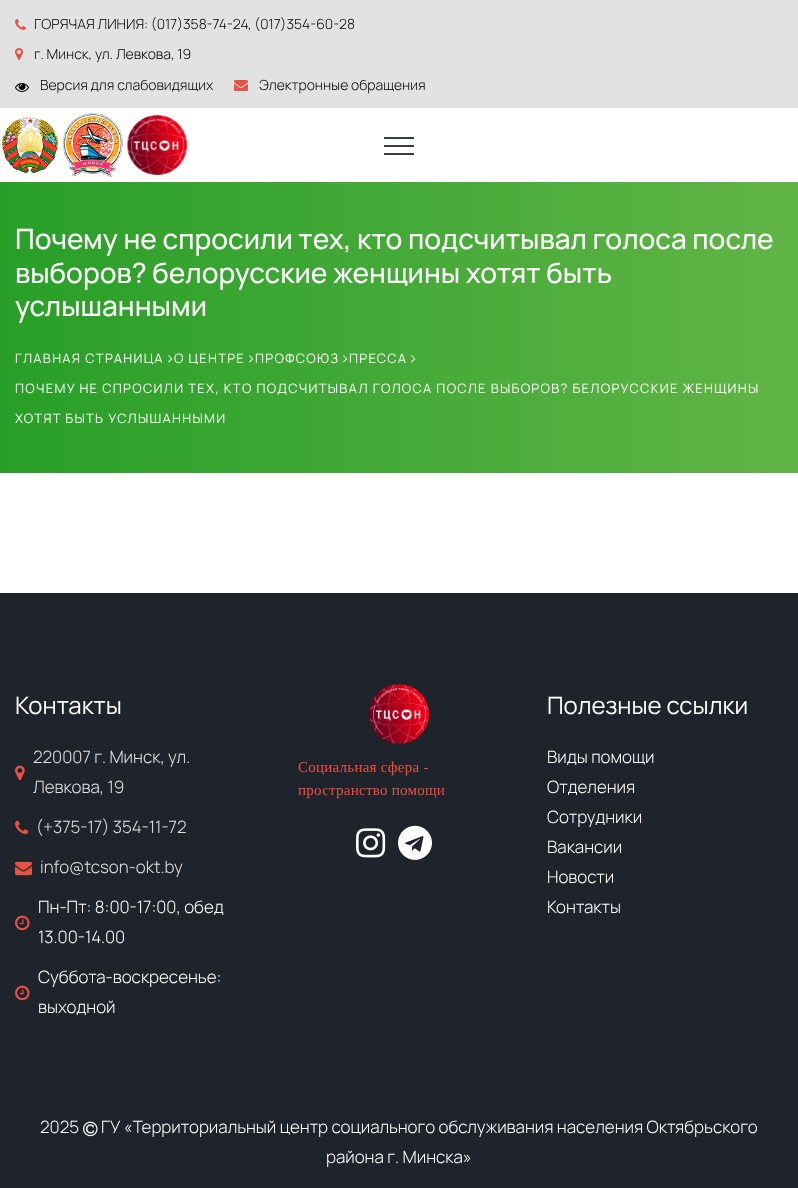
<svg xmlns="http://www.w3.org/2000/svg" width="798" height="1188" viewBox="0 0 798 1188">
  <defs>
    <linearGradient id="g1" gradientUnits="userSpaceOnUse" x1="0" y1="328" x2="798" y2="328"><stop offset="0" stop-color="rgb(40,159,40)"/><stop offset="1" stop-color="rgb(97,181,70)"/></linearGradient>
  </defs>
  <rect width="100%" height="100%" fill="rgb(255,255,255)"/>
  <rect x="0" y="0" width="798" height="108" fill="rgb(226,226,226)"/>
  <image x="15" y="19" width="11" height="11" href="pic1.png"/>
  <g font-family="Manrope" font-size="14" font-weight="300" fill="rgb(0,0,0)">
    <text x="34" y="29">ГОРЯЧАЯ ЛИНИЯ: (017)358-74-24</text>
    <text x="248" y="29">, (017)354-60-28</text>
  </g>
  <image x="15" y="48" width="8" height="12" href="pic2.png"/>
  <text x="34" y="59" font-family="Manrope" font-size="14" font-weight="300" fill="rgb(0,0,0)">г. Минск, ул. Левкова, 19</text>
  <image x="15" y="83" width="14" height="9" href="pic3.png"/>
  <text x="40" y="90" font-family="Manrope" font-size="14" font-weight="300" fill="rgb(0,0,0)">Версия для слабовидящих</text>
  <image x="234" y="80" width="14" height="11" href="pic4.png"/>
  <text x="259" y="90" font-family="Manrope" font-size="14" font-weight="300" fill="rgb(0,0,0)">Электронные обращения</text>
  <image x="2" y="117" width="56" height="57" href="pic5.png"/>
  <image x="63" y="113" width="60" height="64" href="pic6.png"/>
  <image x="126" y="115" width="61" height="60" href="pic7.png"/>
  <rect x="384" y="145" width="30" height="2" fill="rgb(58,61,68)"/>
  <rect x="384" y="137" width="30" height="2" fill="rgb(58,61,68)"/>
  <rect x="384" y="153" width="30" height="2" fill="rgb(58,61,68)"/>
  <rect x="0" y="182" width="798" height="291" fill="url(#g1)"/>
  <g font-family="Manrope" font-size="28" font-weight="500" fill="rgb(255,255,255)">
    <text>
      <tspan x="15" y="249">Почему не спросили тех, кто подсчитывал голоса после</tspan>
      <tspan x="15" y="283">выборов? белорусские женщины хотят быть</tspan>
      <tspan x="15" y="316">услышанными</tspan>
    </text>
  </g>
  <text x="15" y="363" font-family="Manrope" font-size="13" letter-spacing="1.3" fill="rgb(255,255,255)">ГЛАВНАЯ СТРАНИЦА</text>
  <image x="168" y="355" width="5" height="8" href="pic8.png"/>
  <text x="174" y="363" font-family="Manrope" font-size="13" letter-spacing="1.3" fill="rgb(255,255,255)">О ЦЕНТРЕ</text>
  <image x="249" y="355" width="5" height="8" href="pic9.png"/>
  <text x="255" y="363" font-family="Manrope" font-size="13" letter-spacing="1.3" fill="rgb(255,255,255)">ПРОФСОЮЗ</text>
  <image x="343" y="355" width="5" height="8" href="pic10.png"/>
  <text x="349" y="363" font-family="Manrope" font-size="13" letter-spacing="1.3" fill="rgb(255,255,255)">ПРЕССА</text>
  <image x="411" y="355" width="5" height="8" href="pic11.png"/>
  <g font-family="Manrope" font-size="13" letter-spacing="1.3" fill="rgb(255,255,255)">
    <text x="15" y="393">ПОЧЕМУ НЕ СПРОСИЛИ ТЕХ, КТО ПОДСЧИТЫВАЛ ГОЛОСА ПОСЛЕ ВЫБОРОВ? БЕЛОРУССКИЕ ЖЕНЩИНЫ</text>
    <text x="15" y="423">ХОТЯТ БЫТЬ УСЛЫШАННЫМИ</text>
  </g>
  <rect x="0" y="593" width="798" height="595" fill="rgb(31,35,43)"/>
  <text x="15" y="714" font-family="Manrope" font-size="24" fill="rgb(255,255,255)">Контакты</text>
  <image x="15" y="765" width="10" height="16" href="pic12.png"/>
  <g font-family="Manrope" font-size="17" font-weight="300" fill="rgb(224,224,225)">
    <text>
      <tspan x="33" y="763">220007 г. Минск, ул.</tspan>
      <tspan x="33" y="793">Левкова, 19</tspan>
    </text>
  </g>
  <image x="15" y="820" width="14" height="14" href="pic13.png"/>
  <text x="36" y="833" font-family="Manrope" font-size="17" font-weight="300" fill="rgb(224,224,225)">(+375-17) 354-11-72</text>
  <image x="15" y="861" width="17" height="15" href="pic14.png"/>
  <text x="40" y="873" font-family="Manrope" font-size="17" font-weight="300" fill="rgb(224,224,225)">info@tcson-okt.by</text>
  <text x="38" y="913" font-family="Manrope" font-size="17" font-weight="300" fill="rgb(255,255,255)">Пн-Пт: 8:00-17:00, обед</text>
  <image x="15" y="915" width="15" height="16" href="pic15.png"/>
  <g font-family="Manrope" font-size="17" font-weight="300" fill="rgb(255,255,255)">
    <text x="38" y="943">13.00-14.00</text>
    <text x="38" y="983">Суббота-воскресенье:</text>
  </g>
  <image x="15" y="985" width="15" height="16" href="pic15.png"/>
  <text x="38" y="1013" font-family="Manrope" font-size="17" font-weight="300" fill="rgb(255,255,255)">выходной</text>
  <image x="369" y="684" width="60" height="60" href="pic16.png"/>
  <g font-family="Liberation Serif" font-size="15" letter-spacing="0.25" fill="rgb(232,82,66)">
    <text>
      <tspan x="298" y="772">Социальная сфера -</tspan>
      <tspan x="298" y="795">пространство помощи</tspan>
    </text>
  </g>
  <image x="356" y="828" width="30" height="30" href="pic17.png"/>
  <image x="398" y="825" width="34" height="35" href="pic18.png"/>
  <text x="547" y="714" font-family="Manrope" font-size="24" fill="rgb(255,255,255)">Полезные ссылки</text>
  <g font-family="Manrope" font-size="17" font-weight="300" fill="rgb(255,255,255)">
    <text>
      <tspan x="547" y="763">Виды помощи</tspan>
      <tspan x="547" y="793">Отделения</tspan>
      <tspan x="547" y="823">Сотрудники</tspan>
      <tspan x="547" y="853">Вакансии</tspan>
      <tspan x="547" y="883">Новости</tspan>
      <tspan x="547" y="913">Контакты</tspan>
    </text>
    <text x="40" y="1133">2025</text>
  </g>
  <image x="83" y="1121" width="15" height="16" href="pic19.png"/>
  <g font-family="Manrope" font-size="17" font-weight="300" fill="rgb(255,255,255)">
    <text x="101" y="1133">ГУ «Территориальный центр социального обслуживания населения Октябрьского</text>
    <text x="326" y="1163">района г. Минска»</text>
  </g>
</svg>
